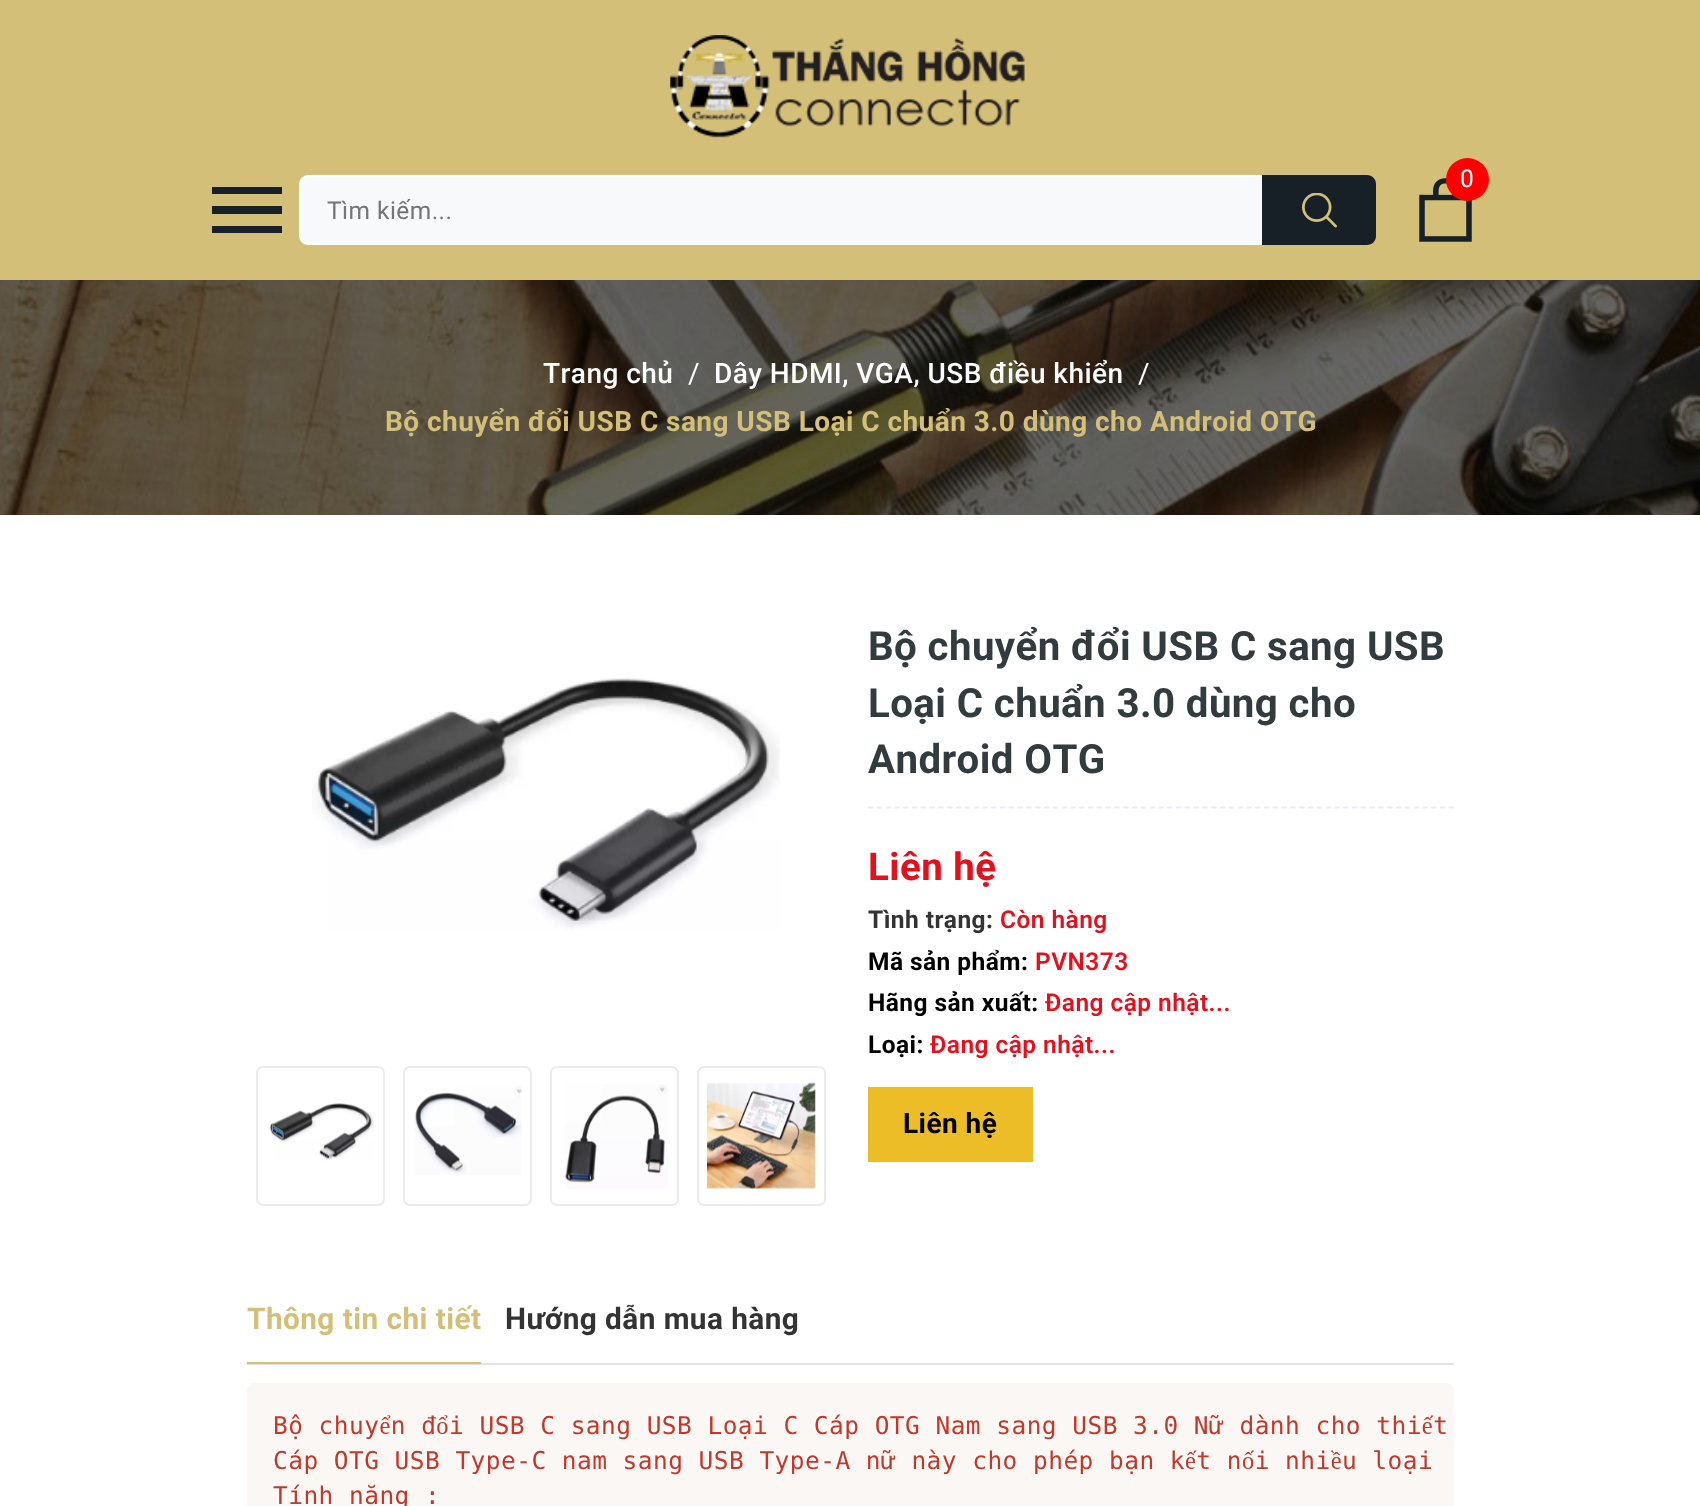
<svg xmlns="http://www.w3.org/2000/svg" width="1700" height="1506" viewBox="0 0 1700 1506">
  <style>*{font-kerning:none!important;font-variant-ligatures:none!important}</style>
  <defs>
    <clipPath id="clip1"><rect x="247" y="1383" width="1207" height="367" rx="7"/></clipPath>
  </defs>
  <rect width="100%" height="100%" fill="rgb(255,255,255)"/>
  <rect x="0" y="0" width="1700" height="280" fill="rgb(212,191,121)"/>
  <image x="670" y="35" width="355" height="103" href="pic1.png"/>
  <image x="1419" y="178" width="53" height="64" href="pic2.png"/>
  <circle cx="1467.5" cy="179.5" r="21.5" fill="rgb(255,0,0)"/>
  <text x="1460" y="187" font-family="Roboto" font-size="24.5" letter-spacing="0.45" fill="rgb(255,255,255)">0</text>
  <rect x="212" y="187" width="70" height="7" fill="rgb(23,32,39)"/>
  <rect x="212" y="206" width="70" height="8" fill="rgb(23,32,39)"/>
  <rect x="212" y="226" width="70" height="7" fill="rgb(23,32,39)"/>
  <rect x="300" y="176" width="1064" height="68" rx="8" fill="rgb(247,249,250)" stroke="rgb(255,255,255)" stroke-width="2"/>
  <text x="327" y="219" font-family="Roboto" font-size="24.5" letter-spacing="0.45" fill="rgb(117,117,117)">Tìm kiếm...</text>
  <path d="M1262 175H1367C1372 175 1376 179 1376 184V236C1376 241 1372 245 1367 245H1262Z" fill="rgb(23,32,39)"/>
  <image x="1302" y="193" width="35" height="35" href="pic3.png"/>
  <image x="0" y="280" width="1700" height="235" href="pic4.png"/>
  <text x="543" y="383" font-family="Roboto" font-size="28" font-weight="500" letter-spacing="0.45" fill="rgb(255,255,255)">Trang chủ</text>
  <text x="688" y="383" font-family="Roboto" font-size="28" letter-spacing="0.45" fill="rgb(255,255,255)">/</text>
  <text x="714" y="383" font-family="Roboto" font-size="28" font-weight="500" letter-spacing="0.45" fill="rgb(255,255,255)">Dây HDMI, VGA, USB điều khiển</text>
  <text x="1138" y="383" font-family="Roboto" font-size="28" letter-spacing="0.45" fill="rgb(255,255,255)">/</text>
  <text x="385" y="431" font-family="Roboto" font-size="28" font-weight="bold" letter-spacing="0.45" fill="rgb(212,191,121)">Bộ chuyển đổi USB C sang USB Loại C chuẩn 3.0 dùng cho Android OTG</text>
  <image x="312" y="678" width="468" height="252" href="pic5.png"/>
  <rect x="257" y="1067" width="127" height="138" rx="6" fill="none" stroke="rgb(235,235,235)" stroke-width="2"/>
  <image x="269" y="1103" width="105" height="58" href="pic6.png"/>
  <rect x="404" y="1067" width="127" height="138" rx="6" fill="none" stroke="rgb(235,235,235)" stroke-width="2"/>
  <image x="414" y="1086" width="108" height="89" href="pic7.png"/>
  <rect x="551" y="1067" width="127" height="138" rx="6" fill="none" stroke="rgb(235,235,235)" stroke-width="2"/>
  <image x="565" y="1084" width="103" height="105" href="pic8.png"/>
  <rect x="698" y="1067" width="127" height="138" rx="6" fill="none" stroke="rgb(235,235,235)" stroke-width="2"/>
  <image x="707" y="1082" width="109" height="107" href="pic9.png"/>
  <path d="M868 807.5H1454" fill="none" stroke="rgb(234,235,243)" stroke-width="1.8" stroke-dasharray="5.25 3.55"/>
  <g font-family="Roboto" font-size="40.25" font-weight="bold" letter-spacing="0.4" fill="rgb(50,60,63)">
    <text>
      <tspan x="868" y="660">Bộ chuyển đổi USB C sang USB</tspan>
      <tspan x="868" y="717">Loại C chuẩn 3.0 dùng cho</tspan>
      <tspan x="868" y="773">Android OTG</tspan>
    </text>
  </g>
  <text x="868" y="880" font-family="Roboto" font-size="38.5" font-weight="bold" letter-spacing="0.45" fill="rgb(229,16,29)">Liên hệ</text>
  <text x="868" y="928" font-family="Roboto" font-size="24.5" font-weight="bold" letter-spacing="0.45" fill="rgb(51,51,51)">Tình trạng:</text>
  <text x="1000" y="928" font-family="Roboto" font-size="24.5" font-weight="600" letter-spacing="0.45" fill="rgb(229,16,29)">Còn hàng</text>
  <text x="868" y="970" font-family="Roboto" font-size="24.5" font-weight="bold" letter-spacing="0.45" fill="rgb(0,0,0)">Mã sản phẩm:</text>
  <text x="1035" y="970" font-family="Roboto" font-size="24.5" font-weight="600" letter-spacing="0.45" fill="rgb(229,16,29)">PVN373</text>
  <text x="868" y="1011" font-family="Roboto" font-size="24.5" font-weight="bold" letter-spacing="0.45" fill="rgb(0,0,0)">Hãng sản xuất:</text>
  <text x="1045" y="1011" font-family="Roboto" font-size="24.5" font-weight="600" letter-spacing="0.45" fill="rgb(229,16,29)">Đang cập nhật...</text>
  <text x="868" y="1053" font-family="Roboto" font-size="24.5" font-weight="bold" letter-spacing="0.45" fill="rgb(0,0,0)">Loại:</text>
  <text x="930" y="1053" font-family="Roboto" font-size="24.5" font-weight="600" letter-spacing="0.45" fill="rgb(229,16,29)">Đang cập nhật...</text>
  <rect x="868" y="1087" width="165" height="75" fill="rgb(237,189,40)"/>
  <text x="903" y="1133" font-family="Roboto" font-size="28" font-weight="bold" letter-spacing="0.45" fill="rgb(0,0,0)">Liên hệ</text>
  <rect x="247" y="1363" width="1207" height="2" fill="rgb(229,227,223)"/>
  <rect x="247" y="1362" width="234" height="2" fill="rgb(212,191,121)"/>
  <text x="247" y="1329" font-family="Roboto" font-size="29.75" font-weight="bold" letter-spacing="0.45" fill="rgb(212,191,121)">Thông tin chi tiết</text>
  <text x="505" y="1329" font-family="Roboto" font-size="29.75" font-weight="bold" letter-spacing="0.45" fill="rgb(51,51,51)">Hướng dẫn mua hàng</text>
  <rect x="247" y="1383" width="1207" height="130" rx="7" fill="rgb(250,247,245)"/>
  <g clip-path="url(#clip1)">
    <text x="273" y="1434" font-family="DejaVu Sans Mono" font-size="24.5" letter-spacing="0.45" fill="rgb(192,57,43)">Bộ chuyển đổi USB C sang USB Loại C Cáp OTG Nam sang USB 3.0 Nữ dành cho thiết</text>
  </g>
  <g font-family="DejaVu Sans Mono" font-size="24.5" letter-spacing="0.45" fill="rgb(192,57,43)">
    <text>
      <tspan x="273" y="1469">Cáp OTG USB Type-C nam sang USB Type-A nữ này cho phép bạn kết nối nhiều loại</tspan>
      <tspan x="273" y="1504">Tính năng :</tspan>
    </text>
  </g>
</svg>
